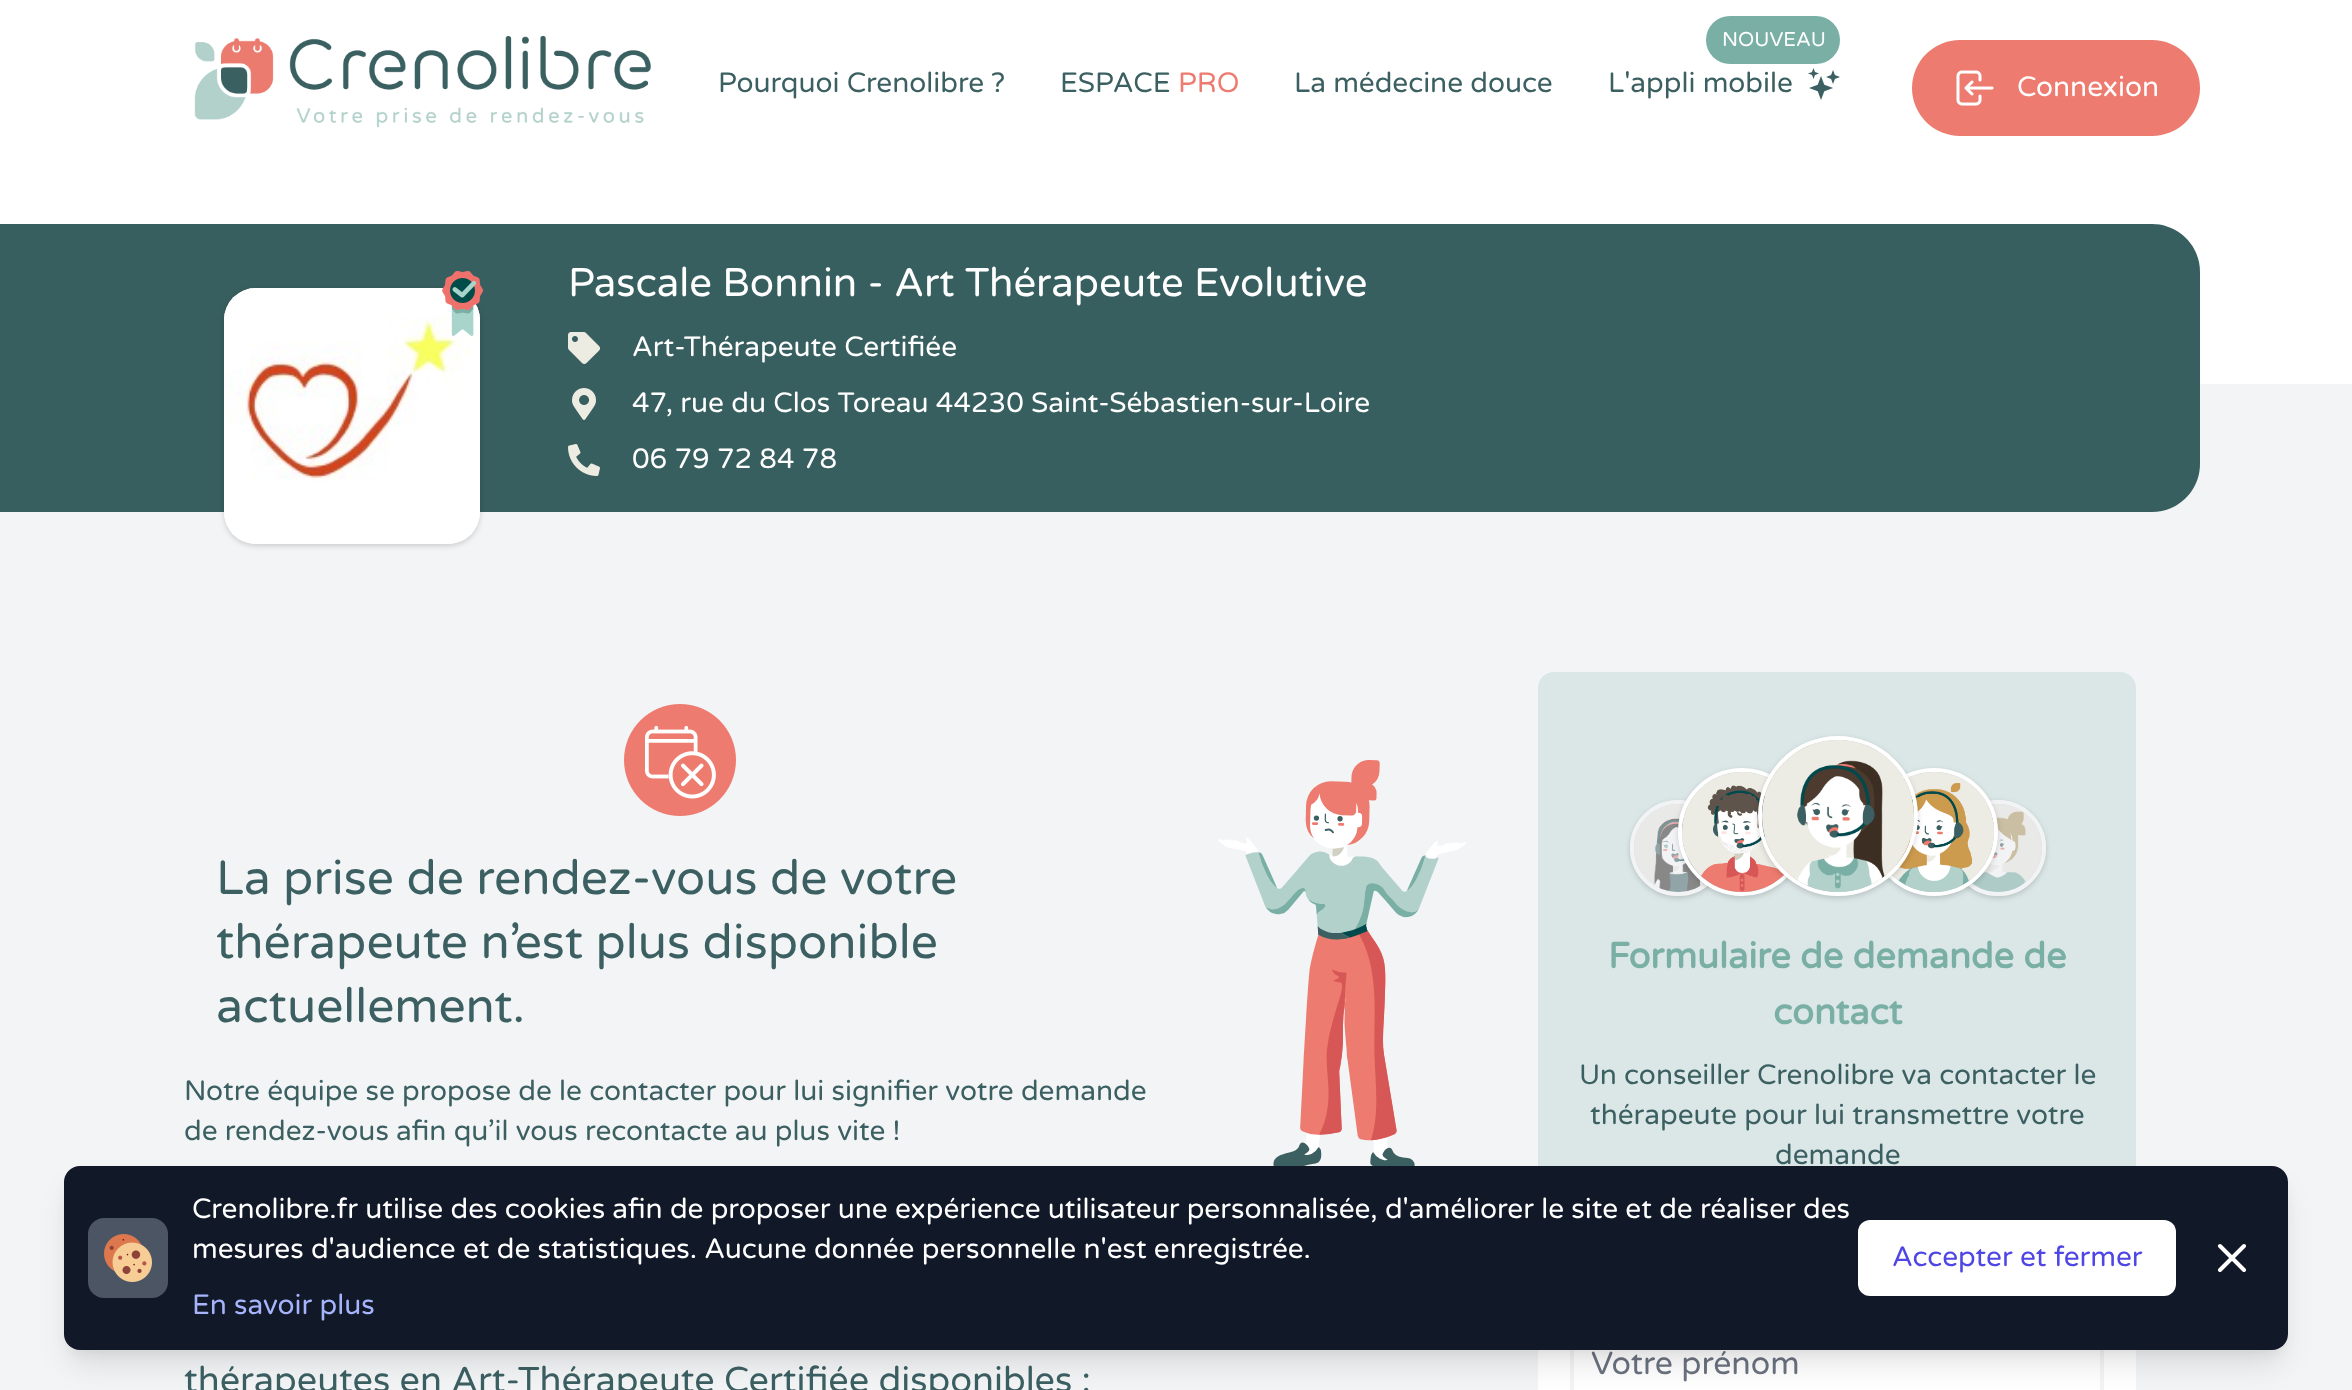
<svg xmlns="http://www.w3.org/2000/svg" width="2352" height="1390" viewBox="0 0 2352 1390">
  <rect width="100%" height="100%" fill="rgb(255,255,255)"/>
  <image x="194" y="35" width="457" height="93" href="pic1.png"/>
  <g font-family="Varela Round" font-size="28" fill="rgb(60,96,98)">
    <text x="718" y="92">Pourquoi Crenolibre ?</text>
    <text x="1060" y="92">ESPACE</text>
  </g>
  <text x="1178" y="92" font-family="Varela Round" font-size="28" fill="rgb(237,123,111)">PRO</text>
  <text x="1294" y="92" font-family="Varela Round" font-size="28" fill="rgb(60,96,98)">La médecine douce</text>
  <rect x="1706" y="16" width="134" height="48" rx="24" fill="rgb(121,175,165)"/>
  <text x="1722" y="46" font-family="Varela Round" font-size="20" fill="rgb(255,255,255)">NOUVEAU</text>
  <text x="1608" y="92" font-family="Varela Round" font-size="28" fill="rgb(60,96,98)">L'appli mobile</text>
  <image x="1808" y="68" width="32" height="32" href="pic2.png"/>
  <rect x="1912" y="40" width="288" height="96" rx="48" fill="rgb(237,123,111)"/>
  <image x="1956" y="70" width="38" height="36" href="pic3.png"/>
  <text x="2017" y="96" font-family="Varela Round" font-size="28" fill="rgb(255,255,255)">Connexion</text>
  <rect x="0" y="384" width="2352" height="1006" fill="rgb(243,244,246)"/>
  <rect x="0" y="224" width="152" height="288" fill="rgb(56,95,95)"/>
  <path d="M152 224H2152C2178.5 224 2200 245.5 2200 272V464C2200 490.5 2178.5 512 2152 512H152Z" fill="rgb(56,95,95)"/>
  <rect x="224" y="290" width="256" height="256" rx="32" fill="rgba(0,0,0,0.06)" filter="blur(2px)"/>
  <rect x="224" y="290" width="256" height="256" rx="32" fill="rgba(0,0,0,0.1)" filter="blur(3px)"/>
  <rect x="224" y="288" width="256" height="256" rx="32" fill="rgb(255,255,255)"/>
  <image x="224" y="288" width="256" height="256" href="pic5.png"/>
  <image x="442" y="270" width="41" height="66" href="pic4.png"/>
  <text x="568" y="296" font-family="Varela Round" font-size="40" fill="rgb(255,255,255)">Pascale Bonnin - Art Thérapeute Evolutive</text>
  <image x="568" y="332" width="32" height="32" href="pic6.png"/>
  <text x="632" y="356" font-family="Varela Round" font-size="28" fill="rgb(255,255,255)">Art-Thérapeute Certifiée</text>
  <image x="572" y="388" width="24" height="32" href="pic7.png"/>
  <text x="632" y="412" font-family="Varela Round" font-size="28" fill="rgb(255,255,255)">47, rue du Clos Toreau 44230 Saint-Sébastien-sur-Loire</text>
  <image x="568" y="444" width="32" height="32" href="pic8.png"/>
  <text x="632" y="468" font-family="Varela Round" font-size="28" fill="rgb(255,255,255)">06 79 72 84 78</text>
  <image x="624" y="704" width="112" height="112" href="pic9.png"/>
  <g font-family="Varela Round" font-size="48" fill="rgb(60,96,98)">
    <text>
      <tspan x="216" y="894">La prise de rendez-vous de votre</tspan>
      <tspan x="216" y="958">thérapeute n’est plus disponible</tspan>
      <tspan x="216" y="1022">actuellement.</tspan>
    </text>
  </g>
  <g font-family="Varela Round" font-size="28" fill="rgb(60,96,98)">
    <text>
      <tspan x="184" y="1100">Notre équipe se propose de le contacter pour lui signifier votre demande</tspan>
      <tspan x="184" y="1140">de rendez-vous afin qu’il vous recontacte au plus vite !</tspan>
    </text>
  </g>
  <image x="1218" y="760" width="248" height="406" href="pic10.png"/>
  <text x="184" y="1392" font-family="Varela Round" font-size="36" fill="rgb(60,96,98)">thérapeutes en Art-Thérapeute Certifiée disponibles :</text>
  <path d="M1554 672H2120C2129 672 2136 679 2136 688V1240H1538V688C1538 679 1545 672 1554 672Z" fill="rgb(219,230,231)"/>
  <rect x="1630" y="802" width="96" height="96" rx="48" fill="rgba(0,0,0,0.06)" filter="blur(2px)"/>
  <rect x="1630" y="802" width="96" height="96" rx="48" fill="rgba(0,0,0,0.1)" filter="blur(3px)"/>
  <circle cx="1678" cy="848" r="46" fill="none" stroke="rgb(255,255,255)" stroke-width="4"/>
  <image x="1634" y="804" width="74" height="88" href="pic14.png"/>
  <circle cx="1678" cy="848" r="48" fill="rgba(229,231,235,0.5)"/>
  <rect x="1678" y="770" width="128" height="128" rx="64" fill="rgba(0,0,0,0.06)" filter="blur(2px)"/>
  <rect x="1678" y="770" width="128" height="128" rx="64" fill="rgba(0,0,0,0.1)" filter="blur(3px)"/>
  <circle cx="1742" cy="832" r="62" fill="none" stroke="rgb(255,255,255)" stroke-width="4"/>
  <image x="1682" y="772" width="105" height="120" href="pic11.png"/>
  <rect x="1950" y="802" width="96" height="96" rx="48" fill="rgba(0,0,0,0.06)" filter="blur(2px)"/>
  <rect x="1950" y="802" width="96" height="96" rx="48" fill="rgba(0,0,0,0.1)" filter="blur(3px)"/>
  <circle cx="1998" cy="848" r="46" fill="none" stroke="rgb(255,255,255)" stroke-width="4"/>
  <image x="1968" y="804" width="74" height="88" href="pic15.png"/>
  <circle cx="1998" cy="848" r="48" fill="rgba(229,231,235,0.5)"/>
  <rect x="1870" y="770" width="128" height="128" rx="64" fill="rgba(0,0,0,0.06)" filter="blur(2px)"/>
  <rect x="1870" y="770" width="128" height="128" rx="64" fill="rgba(0,0,0,0.1)" filter="blur(3px)"/>
  <circle cx="1934" cy="832" r="62" fill="none" stroke="rgb(255,255,255)" stroke-width="4"/>
  <image x="1889" y="772" width="105" height="120" href="pic13.png"/>
  <rect x="1758" y="738" width="160" height="160" rx="80" fill="rgba(0,0,0,0.06)" filter="blur(2px)"/>
  <rect x="1758" y="738" width="160" height="160" rx="80" fill="rgba(0,0,0,0.1)" filter="blur(3px)"/>
  <circle cx="1838" cy="816" r="78" fill="none" stroke="rgb(255,255,255)" stroke-width="4"/>
  <image x="1762" y="740" width="152" height="152" href="pic12.png"/>
  <g font-family="Varela Round" font-size="36" font-weight="bold" fill="rgb(121,175,165)">
    <text x="1608" y="968">Formulaire de demande de</text>
    <text x="1773" y="1024">contact</text>
  </g>
  <g font-family="Varela Round" font-size="28" fill="rgb(60,96,98)">
    <text x="1579" y="1084">Un conseiller Crenolibre va contacter le</text>
    <text x="1590" y="1124">thérapeute pour lui transmettre votre</text>
    <text x="1775" y="1164">demande</text>
  </g>
  <rect x="1538" y="1350" width="598" height="40" fill="rgb(255,255,255)"/>
  <rect x="1572" y="1322" width="530" height="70" fill="none" stroke="rgb(243,244,246)" stroke-width="4"/>
  <text x="1591" y="1374" font-family="Varela Round" font-size="32" fill="rgb(107,114,128)">Votre prénom</text>
  <rect x="68" y="1178" width="2216" height="176" rx="12" fill="rgba(0,0,0,0.05)" filter="blur(6px)"/>
  <rect x="70" y="1192" width="2212" height="172" rx="10" fill="rgba(0,0,0,0.1)" filter="blur(15px)"/>
  <rect x="64" y="1166" width="2224" height="184" rx="16" fill="rgb(17,24,39)"/>
  <rect x="88" y="1218" width="80" height="80" rx="16" fill="rgb(75,85,99)"/>
  <image x="104" y="1234" width="48" height="48" href="pic16.png"/>
  <g font-family="Varela Round" font-size="28" fill="rgb(255,255,255)">
    <text>
      <tspan x="192" y="1218">Crenolibre.fr utilise des cookies afin de proposer une expérience utilisateur personnalisée, d'améliorer le site et de réaliser des</tspan>
      <tspan x="192" y="1258">mesures d'audience et de statistiques. Aucune donnée personnelle n'est enregistrée.</tspan>
    </text>
  </g>
  <text x="192" y="1314" font-family="Varela Round" font-size="28" fill="rgb(165,180,252)">En savoir plus</text>
  <rect x="1858" y="1220" width="318" height="76" rx="12" fill="rgb(255,255,255)"/>
  <text x="1892" y="1266" font-family="Varela Round" font-size="28" fill="rgb(79,70,229)">Accepter et fermer</text>
  <path d="M2220 1270L2244 1246M2220 1246L2244 1270" fill="none" stroke="rgb(255,255,255)" stroke-width="4" stroke-linecap="round" stroke-linejoin="round"/>
</svg>
